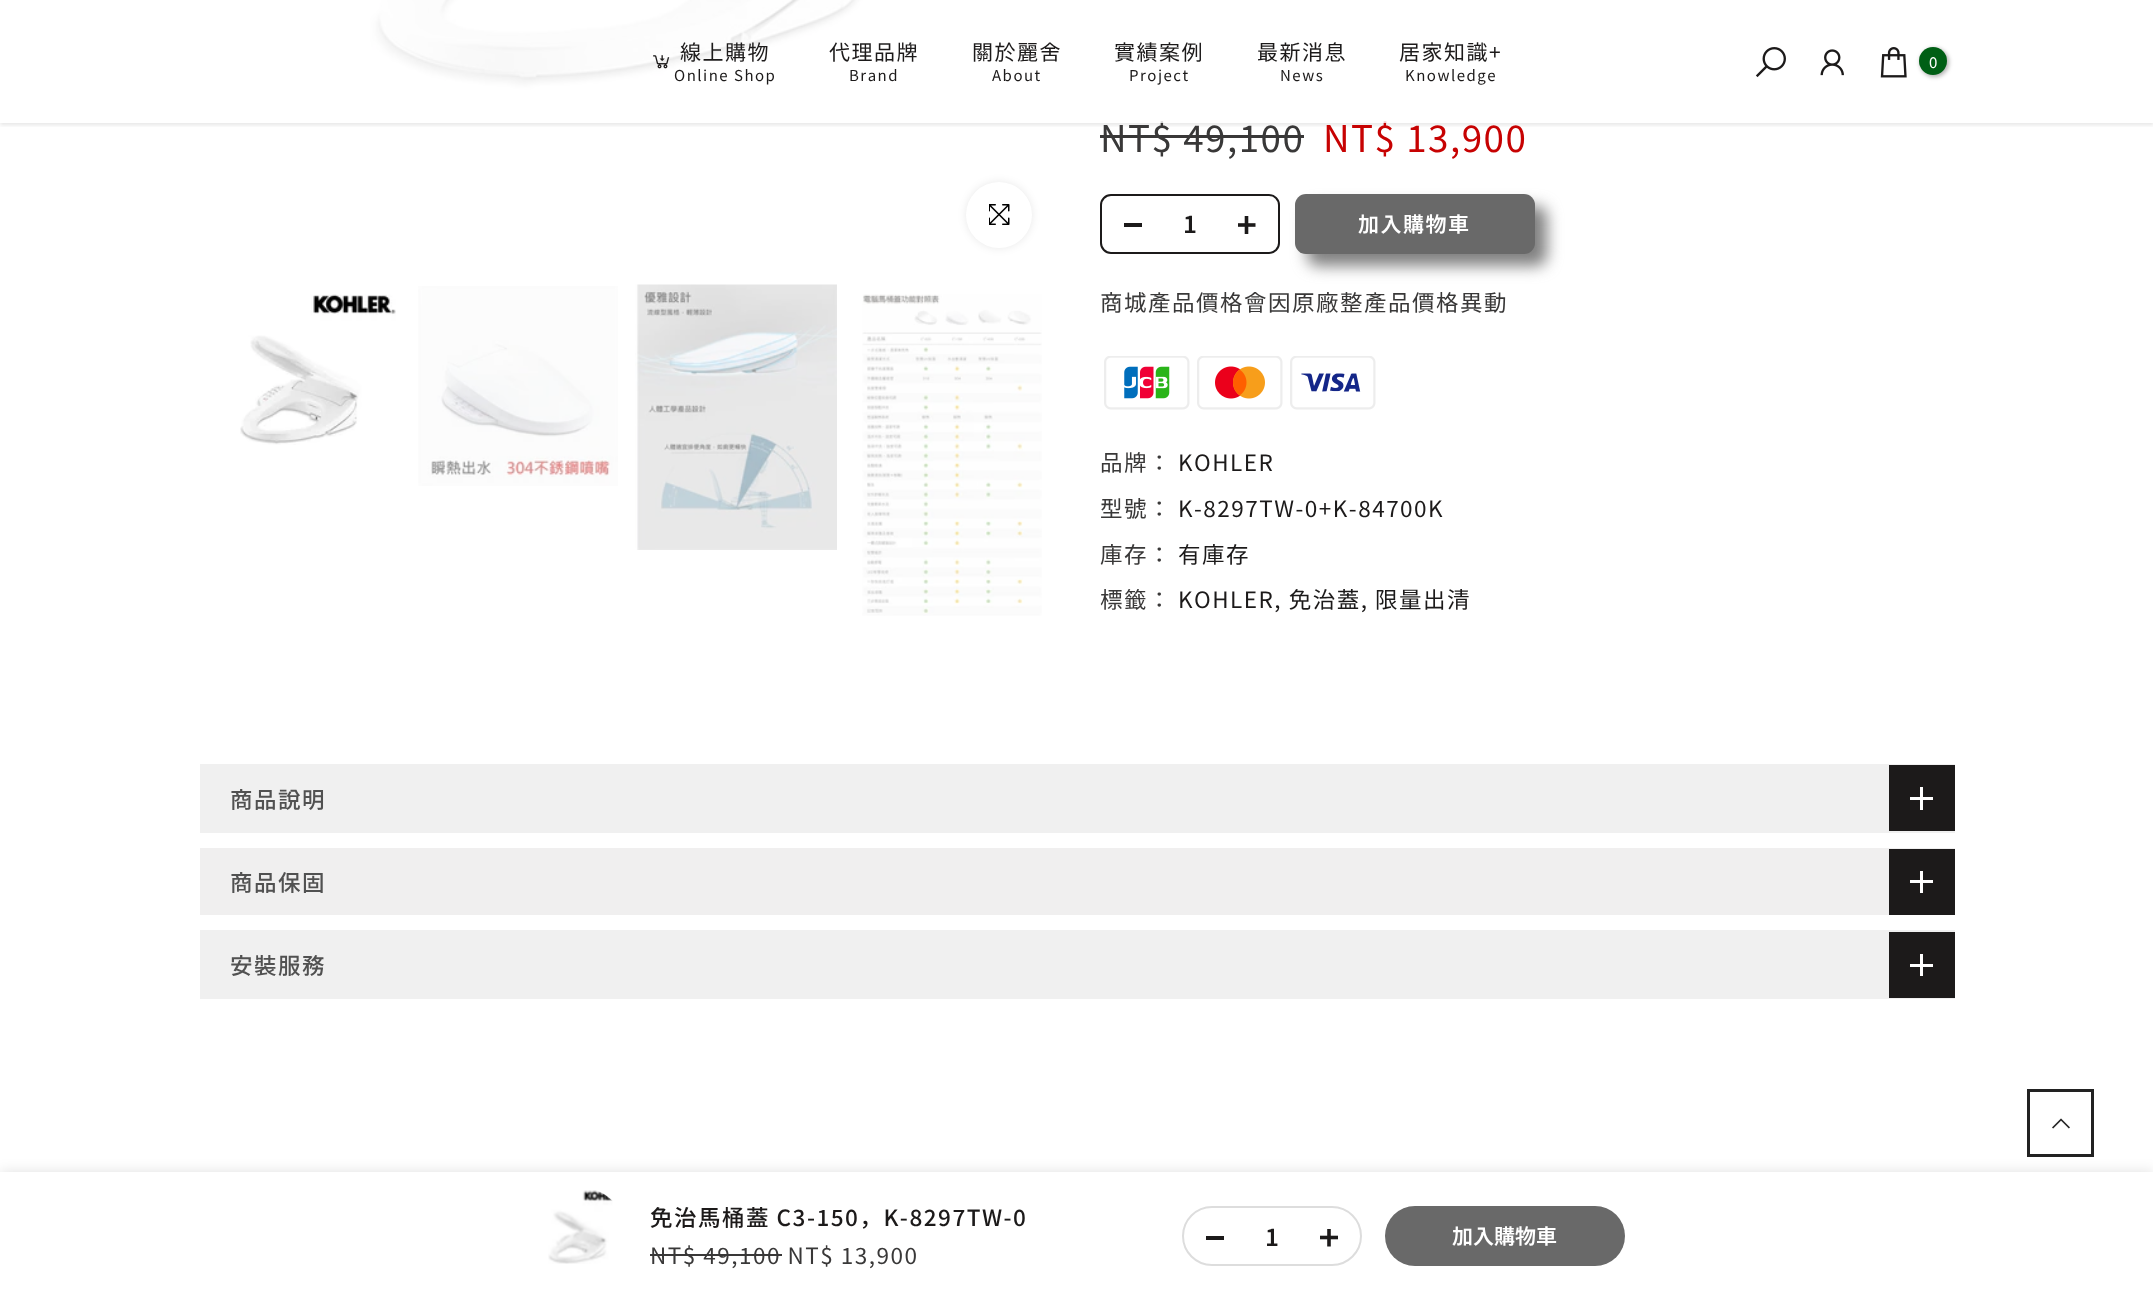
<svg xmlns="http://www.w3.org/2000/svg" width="2153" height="1298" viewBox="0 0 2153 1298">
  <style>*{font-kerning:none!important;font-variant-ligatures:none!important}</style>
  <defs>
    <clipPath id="clip1"><rect x="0" y="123" width="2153" height="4"/></clipPath>
  </defs>
  <rect width="100%" height="100%" fill="rgb(255,255,255)"/>
  <image x="370" y="0" width="493" height="90" href="pic5.png"/>
  <g clip-path="url(#clip1)">
    <rect x="0" y="2" width="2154" height="123" fill="rgba(0,0,0,0.1)" filter="blur(2px)"/>
  </g>
  <text x="1100" y="152" font-family="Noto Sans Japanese" font-size="36.75" letter-spacing="1.5" fill="rgb(57,56,56)">NT$ 49,100</text>
  <text x="1323" y="152" font-family="Noto Sans Japanese" font-size="36.75" letter-spacing="1.5" fill="rgb(199,2,2)">NT$ 13,900</text>
  <rect x="370" y="0" width="1016" height="123" fill="rgba(255,255,255,0.8)"/>
  <image x="653" y="55" width="17" height="14" href="pic1.png"/>
  <text x="680" y="60" font-family="Noto Sans Japanese" font-size="21" letter-spacing="1.5" fill="rgb(28,26,26)">線上購物</text>
  <text x="674" y="81" font-family="Noto Sans Japanese" font-size="15" letter-spacing="1.5" fill="rgb(28,26,26)">Online Shop</text>
  <text x="829" y="60" font-family="Noto Sans Japanese" font-size="21" letter-spacing="1.5" fill="rgb(28,26,26)">代理品牌</text>
  <text x="849" y="81" font-family="Noto Sans Japanese" font-size="15" letter-spacing="1.5" fill="rgb(28,26,26)">Brand</text>
  <text x="972" y="60" font-family="Noto Sans Japanese" font-size="21" letter-spacing="1.5" fill="rgb(28,26,26)">關於麗舍</text>
  <text x="992" y="81" font-family="Noto Sans Japanese" font-size="15" letter-spacing="1.5" fill="rgb(28,26,26)">About</text>
  <text x="1114" y="60" font-family="Noto Sans Japanese" font-size="21" letter-spacing="1.5" fill="rgb(28,26,26)">實績案例</text>
  <text x="1129" y="81" font-family="Noto Sans Japanese" font-size="15" letter-spacing="1.5" fill="rgb(28,26,26)">Project</text>
  <text x="1257" y="60" font-family="Noto Sans Japanese" font-size="21" letter-spacing="1.5" fill="rgb(28,26,26)">最新消息</text>
  <text x="1280" y="81" font-family="Noto Sans Japanese" font-size="15" letter-spacing="1.5" fill="rgb(28,26,26)">News</text>
  <text x="1399" y="60" font-family="Noto Sans Japanese" font-size="21" letter-spacing="1.5" fill="rgb(28,26,26)">居家知識+</text>
  <text x="1405" y="81" font-family="Noto Sans Japanese" font-size="15" letter-spacing="1.5" fill="rgb(28,26,26)">Knowledge</text>
  <image x="1755" y="47" width="31" height="31" href="pic2.png"/>
  <image x="1820" y="49" width="24" height="27" href="pic3.png"/>
  <image x="1880" y="47" width="27" height="31" href="pic4.png"/>
  <rect x="1920" y="48" width="29" height="29" rx="14.5" fill="rgba(0,0,0,0.3)" filter="blur(2px)"/>
  <circle cx="1933" cy="61" r="14" fill="rgb(0,95,21)"/>
  <text x="1929" y="68" font-family="Noto Sans Japanese" font-size="15" fill="rgb(255,255,255)">0</text>
  <rect x="966" y="182" width="66" height="66" rx="33" fill="rgba(0,0,0,0.09)" filter="blur(4px)"/>
  <circle cx="999" cy="215" r="33" fill="rgb(255,255,255)"/>
  <image x="989" y="204" width="21" height="21" href="pic6.png"/>
  <image x="240" y="294" width="156" height="151" href="pic7.png"/>
  <image x="418" y="286" width="200" height="200" href="pic8.png"/>
  <image x="635" y="284" width="202" height="266" href="pic9.png"/>
  <image x="862" y="294" width="180" height="322" href="pic10.png"/>
  <rect x="1100" y="135" width="204" height="3" fill="rgb(57,56,56)"/>
  <rect x="1101" y="195" width="178" height="58" rx="10" fill="none" stroke="rgb(28,26,26)" stroke-width="2"/>
  <rect x="1124" y="223" width="18" height="4" fill="rgb(28,26,26)"/>
  <text x="1183" y="233" font-family="Noto Sans Japanese" font-size="24" font-weight="600" fill="rgb(28,26,26)">1</text>
  <image x="1238" y="216" width="18" height="18" href="pic11.png"/>
  <rect x="1307" y="206" width="240" height="60" rx="11" fill="rgb(128,128,128)" filter="blur(7.5px)"/>
  <rect x="1295" y="194" width="240" height="60" rx="11" fill="rgb(105,105,105)"/>
  <text x="1358" y="232" font-family="Noto Sans Japanese" font-size="21" font-weight="600" letter-spacing="1.5" fill="rgb(255,255,255)">加入購物車</text>
  <text x="1100" y="311" font-family="Noto Sans Japanese" font-size="22.5" letter-spacing="1.5" fill="rgb(57,56,56)">商城產品價格會因原廠整產品價格異動</text>
  <image x="1104" y="356" width="86" height="54" href="pic12.png"/>
  <image x="1197" y="356" width="86" height="54" href="pic13.png"/>
  <image x="1290" y="356" width="86" height="54" href="pic14.png"/>
  <text x="1100" y="471" font-family="Noto Sans Japanese" font-size="22.5" letter-spacing="1.5" fill="rgb(57,56,56)">品牌：</text>
  <text x="1178" y="471" font-family="Noto Sans Japanese" font-size="22.5" letter-spacing="1.5" fill="rgb(28,26,26)">KOHLER</text>
  <text x="1100" y="517" font-family="Noto Sans Japanese" font-size="22.5" letter-spacing="1.5" fill="rgb(57,56,56)">型號：</text>
  <text x="1178" y="517" font-family="Noto Sans Japanese" font-size="22.5" letter-spacing="1.5" fill="rgb(28,26,26)">K-8297TW-0+K-84700K</text>
  <text x="1100" y="563" font-family="Noto Sans Japanese" font-size="22.5" letter-spacing="1.5" fill="rgb(57,56,56)">庫存：</text>
  <text x="1178" y="563" font-family="Noto Sans Japanese" font-size="22.5" letter-spacing="1.5" fill="rgb(28,26,26)">有庫存</text>
  <text x="1100" y="608" font-family="Noto Sans Japanese" font-size="22.5" letter-spacing="1.5" fill="rgb(57,56,56)">標籤：</text>
  <text x="1178" y="608" font-family="Noto Sans Japanese" font-size="22.5" letter-spacing="1.5" fill="rgb(28,26,26)">KOHLER, 免治蓋, 限量出清</text>
  <rect x="200" y="764" width="1755" height="69" fill="rgb(240,240,240)"/>
  <text x="230" y="808" font-family="Noto Sans Japanese" font-size="22.5" font-weight="500" letter-spacing="1.5" fill="rgb(81,81,81)">商品說明</text>
  <rect x="1889" y="765" width="66" height="66" fill="rgb(28,26,26)"/>
  <rect x="1920" y="787" width="3" height="23" fill="rgb(255,255,255)"/>
  <rect x="1910" y="797" width="23" height="3" fill="rgb(255,255,255)"/>
  <rect x="200" y="848" width="1755" height="67" fill="rgb(240,239,239)"/>
  <text x="230" y="891" font-family="Noto Sans Japanese" font-size="22.5" font-weight="500" letter-spacing="1.5" fill="rgb(81,81,81)">商品保固</text>
  <rect x="1889" y="849" width="66" height="66" fill="rgb(28,26,26)"/>
  <rect x="1920" y="871" width="3" height="22" fill="rgb(255,255,255)"/>
  <rect x="1910" y="880" width="23" height="3" fill="rgb(255,255,255)"/>
  <rect x="200" y="930" width="1755" height="69" fill="rgb(240,240,240)"/>
  <text x="230" y="974" font-family="Noto Sans Japanese" font-size="22.5" font-weight="500" letter-spacing="1.5" fill="rgb(81,81,81)">安裝服務</text>
  <rect x="1889" y="932" width="66" height="66" fill="rgb(28,26,26)"/>
  <rect x="1920" y="954" width="3" height="22" fill="rgb(255,255,255)"/>
  <rect x="1910" y="964" width="23" height="3" fill="rgb(255,255,255)"/>
  <rect x="0" y="1172" width="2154" height="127" fill="rgba(0,0,0,0.12)" filter="blur(7px)"/>
  <rect x="2028.5" y="1090.5" width="64" height="65" fill="none" stroke="rgb(34,34,34)" stroke-width="3"/>
  <image x="2052" y="1118" width="18" height="11" href="pic15.png"/>
  <rect x="0" y="1172" width="2153" height="126" fill="rgb(255,255,255)"/>
  <image x="548" y="1190" width="65" height="74" href="pic16.png"/>
  <text x="650" y="1226" font-family="Noto Sans Japanese" font-size="22.5" font-weight="500" letter-spacing="1.5" fill="rgb(28,26,26)">免治馬桶蓋 C3-150，K-8297TW-0</text>
  <text x="650" y="1264" font-family="Noto Sans Japanese" font-size="22.5" letter-spacing="1.5" fill="rgb(57,56,56)">NT$ 49,100 NT$ 13,900</text>
  <rect x="650" y="1254" width="132" height="2" fill="rgb(57,56,56)"/>
  <rect x="1183" y="1207" width="178" height="58" rx="29" fill="none" stroke="rgb(221,221,221)" stroke-width="2"/>
  <rect x="1206" y="1236" width="18" height="4" fill="rgb(28,26,26)"/>
  <text x="1265" y="1246" font-family="Noto Sans Japanese" font-size="24" font-weight="600" fill="rgb(28,26,26)">1</text>
  <image x="1320" y="1229" width="18" height="18" href="pic17.png"/>
  <rect x="1385" y="1206" width="240" height="60" rx="30" fill="rgb(105,105,105)"/>
  <text x="1452" y="1244" font-family="Noto Sans Japanese" font-size="21" font-weight="600" fill="rgb(255,255,255)">加入購物車</text>
</svg>
